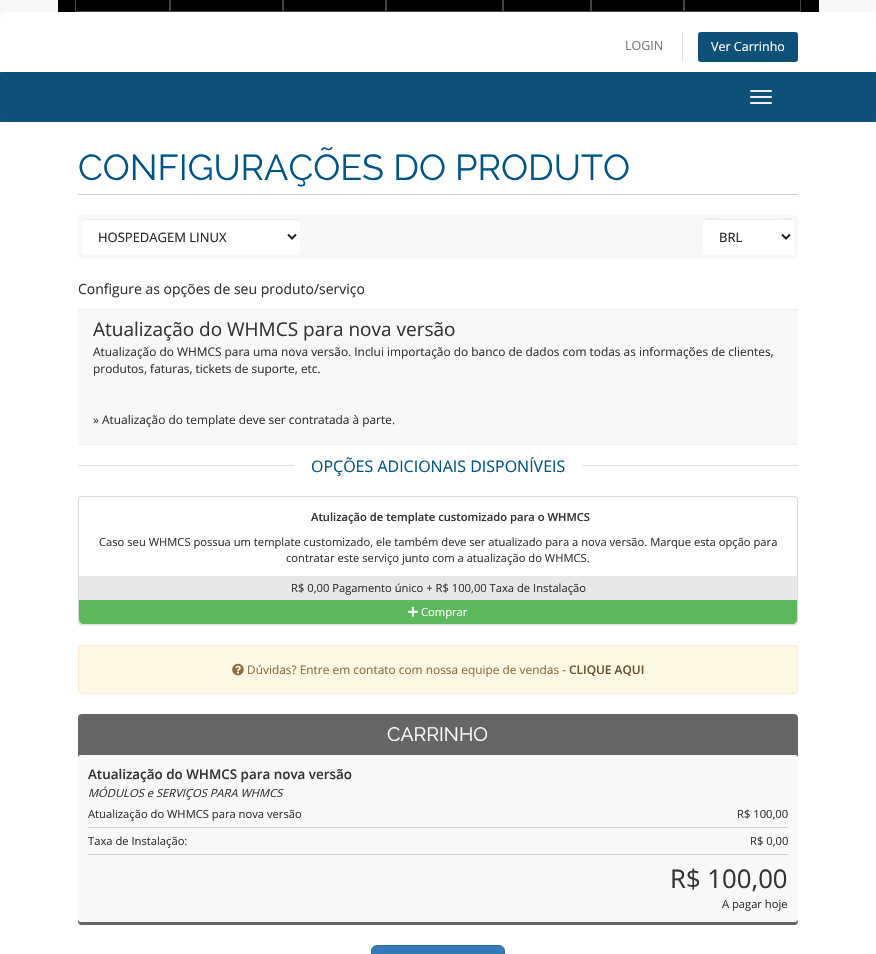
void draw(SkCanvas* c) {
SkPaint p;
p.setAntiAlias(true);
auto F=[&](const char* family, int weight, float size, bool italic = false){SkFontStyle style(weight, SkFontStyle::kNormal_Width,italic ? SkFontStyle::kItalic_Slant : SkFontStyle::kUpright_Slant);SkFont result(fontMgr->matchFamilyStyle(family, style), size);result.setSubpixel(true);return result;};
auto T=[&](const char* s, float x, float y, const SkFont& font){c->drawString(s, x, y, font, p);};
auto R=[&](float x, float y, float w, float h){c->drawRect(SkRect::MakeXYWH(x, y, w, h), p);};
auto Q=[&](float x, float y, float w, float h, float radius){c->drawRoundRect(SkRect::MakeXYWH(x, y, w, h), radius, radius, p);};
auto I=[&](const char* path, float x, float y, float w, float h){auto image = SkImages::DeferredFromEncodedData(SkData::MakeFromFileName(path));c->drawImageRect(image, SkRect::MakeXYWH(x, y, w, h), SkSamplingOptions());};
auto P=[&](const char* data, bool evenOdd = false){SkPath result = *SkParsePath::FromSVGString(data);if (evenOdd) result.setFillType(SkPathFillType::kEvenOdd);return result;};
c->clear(0xfff8f8f8);
p.setColor(0xff000000);
R(58,0,761,12);
p.setColor(0xff444444);
R(169,0,1,12);
R(75,11,95,1);
R(75,0,1,12);
R(282,0,1,12);
R(170,11,113,1);
R(170,0,1,12);
R(385,0,1,12);
R(283,11,103,1);
R(283,0,1,12);
R(502,0,1,12);
R(386,11,117,1);
R(386,0,1,12);
R(590,0,1,12);
R(503,11,88,1);
R(503,0,1,12);
R(683,0,1,12);
R(591,11,93,1);
R(591,0,1,12);
R(800,0,1,12);
R(684,11,117,1);
R(684,0,1,12);
p.setColor(0xffffffff);
c->drawPath(P("M5 12h866c3 0 5 2 5 5v55h-876v-55c0-3 2-5 5-5z"),p);
auto f1 = F("Open Sans",400,12.5);
p.setColor(0xff777777);
T("LOGIN",625,50,f1);
p.setColor(0xffdddddd);
R(682,32,1,30);
p.setColor(0xff0e5077);
Q(698,32,100,30,3);
p.setColor(0xffffffff);
T("Ver Carrinho",711,51,f1);
p.setColor(0xff006687);
R(0,72,876,50);
p.setColor(0xff0e5077);
Q(0,72,876,50,4);
p.setColor(0xffeeeeee);
Q(750,90,22,2,1);
Q(750,96,22,2,1);
Q(750,102,22,2,1);
p.setColor(0xffffffff);
R(0,122,876,832);
p.setColor(0xffcccccc);
R(78,194,720,1);
auto f2 = F("Raleway",400,36);
p.setColor(0xff005588);
T("CONFIGURAÇÕES DO PRODUTO",78,180,f2);
p.setColor(0xfff8f8f8);
Q(78,215,720,44,4);
p.setColor(0xffffffff);
Q(82,219,218,36,3);
p.setColor(0x12000000);
c->drawPath(P("M85 220h212c2 0 3 1 3 3v-1c0-2-1-3-3-3h-212c-2 0-3 1-3 3v1c0-2 1-3 3-3z"),p);
p.setStroke(true);
p.setStrokeWidth(2);
p.setColor(0xff222222);
c->drawPath(P("M288 234.5l4 4l4-4"),p);
auto f3 = F("Open Sans",400,13);
p.setStroke(false);
T("HOSPEDAGEM LINUX",98,242,f3);
p.setColor(0xffffffff);
Q(703,219,91,36,3);
p.setColor(0x12000000);
c->drawPath(P("M706 220h85c2 0 3 1 3 3c0-8-14-4-17-4h-57c-3 0-17-4-17 4c0-2 1-3 3-3z"),p);
p.setStroke(true);
p.setColor(0xff222222);
c->drawPath(P("M782 234.5l4 4l4-4"),p);
p.setStroke(false);
T("BRL",719,242,f3);
auto f4 = F("Open Sans",400,14);
p.setColor(0xff333333);
T("Configure as opções de seu produto/serviço",78,294,f4);
p.setColor(0xfff8f8f8);
R(78,310,720,134);
p.setColor(0xffefefef);
R(78,309,720,1);
R(78,444,720,1);
auto f5 = F("Open Sans",400,19);
p.setColor(0xff333333);
T("Atualização do WHMCS para nova versão",93,336,f5);
auto f6 = F("Open Sans",400,11.9);
T("Atualização do WHMCS para uma nova versão. Inclui importação do banco de dados com todas as informações de clientes,",93,356,f6);
T("produtos, faturas, tickets de suporte, etc.",93,373,f6);
T("» Atualização do template deve ser contratada à parte.",93,424,f6);
p.setColor(0xffdddddd);
R(78,465,720,1);
p.setColor(0xffffffff);
R(294,465,288,1);
auto f7 = F("Open Sans",400,16);
p.setColor(0xff005588);
T("OPÇÕES ADICIONAIS DISPONÍVEIS",311,472,f7);
p.setColor(0x0d000000);
p.setMaskFilter(SkMaskFilter::MakeBlur(kNormal_SkBlurStyle, .5));
c->drawRoundRect(SkRect::MakeXYWH(78,497,720,129),4,4,p);
p.setMaskFilter(nullptr);
p.setColor(0xffffffff);
c->drawRoundRect(SkRect::MakeXYWH(78.5,496.5,719,128),3.5,3.5,p);
p.setStroke(true);
p.setStrokeWidth(1);
p.setColor(0xffdddddd);
c->drawRoundRect(SkRect::MakeXYWH(78.5,496.5,719,128),3.5,3.5,p);
auto f8 = F("Open Sans",600,11.2);
p.setStroke(false);
p.setColor(0xff333333);
T("Atulização de template customizado para o WHMCS",311,521,f8);
auto f9 = F("Open Sans",400,11.2);
T("Caso seu WHMCS possua um template customizado, ele também deve ser atualizado para a nova versão. Marque esta opção para",99,546,f9);
T("contratar este serviço junto com a atualização do WHMCS.",286,562,f9);
p.setColor(0xffe8e8e8);
R(79,576,718,24);
p.setColor(0xff333333);
T("R$ 0,00 Pagamento único + R$ 100,00 Taxa de Instalação",291,592,f9);
p.setColor(0xff5cb85c);
c->drawPath(P("M79 600h718v20c0 2-2 4-4 4h-710c-2 0-4-2-4-4z"),p);
I("1.png",408,606,10,11);
p.setColor(0xffffffff);
T("Comprar",421,616,f9);
p.setColor(0xfffcf8e3);
c->drawRoundRect(SkRect::MakeXYWH(78.5,645.5,719,48),3.5,3.5,p);
p.setStroke(true);
p.setColor(0xfffaebcc);
c->drawRoundRect(SkRect::MakeXYWH(78.5,645.5,719,48),3.5,3.5,p);
I("2.png",232,663,12,13);
p.setStroke(false);
p.setColor(0xff8a6d3b);
T("Dúvidas? Entre em contato com nossa equipe de vendas -",247,674,f6);
auto f10 = F("Open Sans",600,11.9);
p.setColor(0xff66512c);
T("CLIQUE AQUI",569,674,f10);
p.setColor(0xff666666);
Q(78,714,720,211,4);
R(80,924,716,1);
auto f11 = F("Raleway",400,19.5);
p.setColor(0xffffffff);
T("CARRINHO",387,741,f11);
p.setColor(0xfff8f8f8);
Q(78,755,720,167,3);
auto f12 = F("Open Sans",600,13.4);
p.setColor(0xff333333);
T("Atualização do WHMCS para nova versão",88,779,f12);
auto f13 = F("Open Sans",400,11.2,true);
T("MÓDULOS e SERVIÇOS PARA WHMCS",88,797,f13);
T("Atualização do WHMCS para nova versão",88,818,f9);
T("R$ 100,00",737,818,f9);
p.setColor(0xffcccccc);
R(88,827,700,1);
R(88,854,700,1);
p.setColor(0xff333333);
T("Taxa de Instalação:",88,845,f9);
T("R$ 0,00",750,845,f9);
auto f14 = F("Open Sans",400,25.75);
T("R$ 100,00",670,888,f14);
T("A pagar hoje",722,908,f9);
p.setColor(0xff337ab7);
c->drawRoundRect(SkRect::MakeXYWH(371.5,945.5,133,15),5.5,5.5,p);
p.setStroke(true);
p.setColor(0xff2e6da4);
c->drawRoundRect(SkRect::MakeXYWH(371.5,945.5,133,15),5.5,5.5,p);
}
